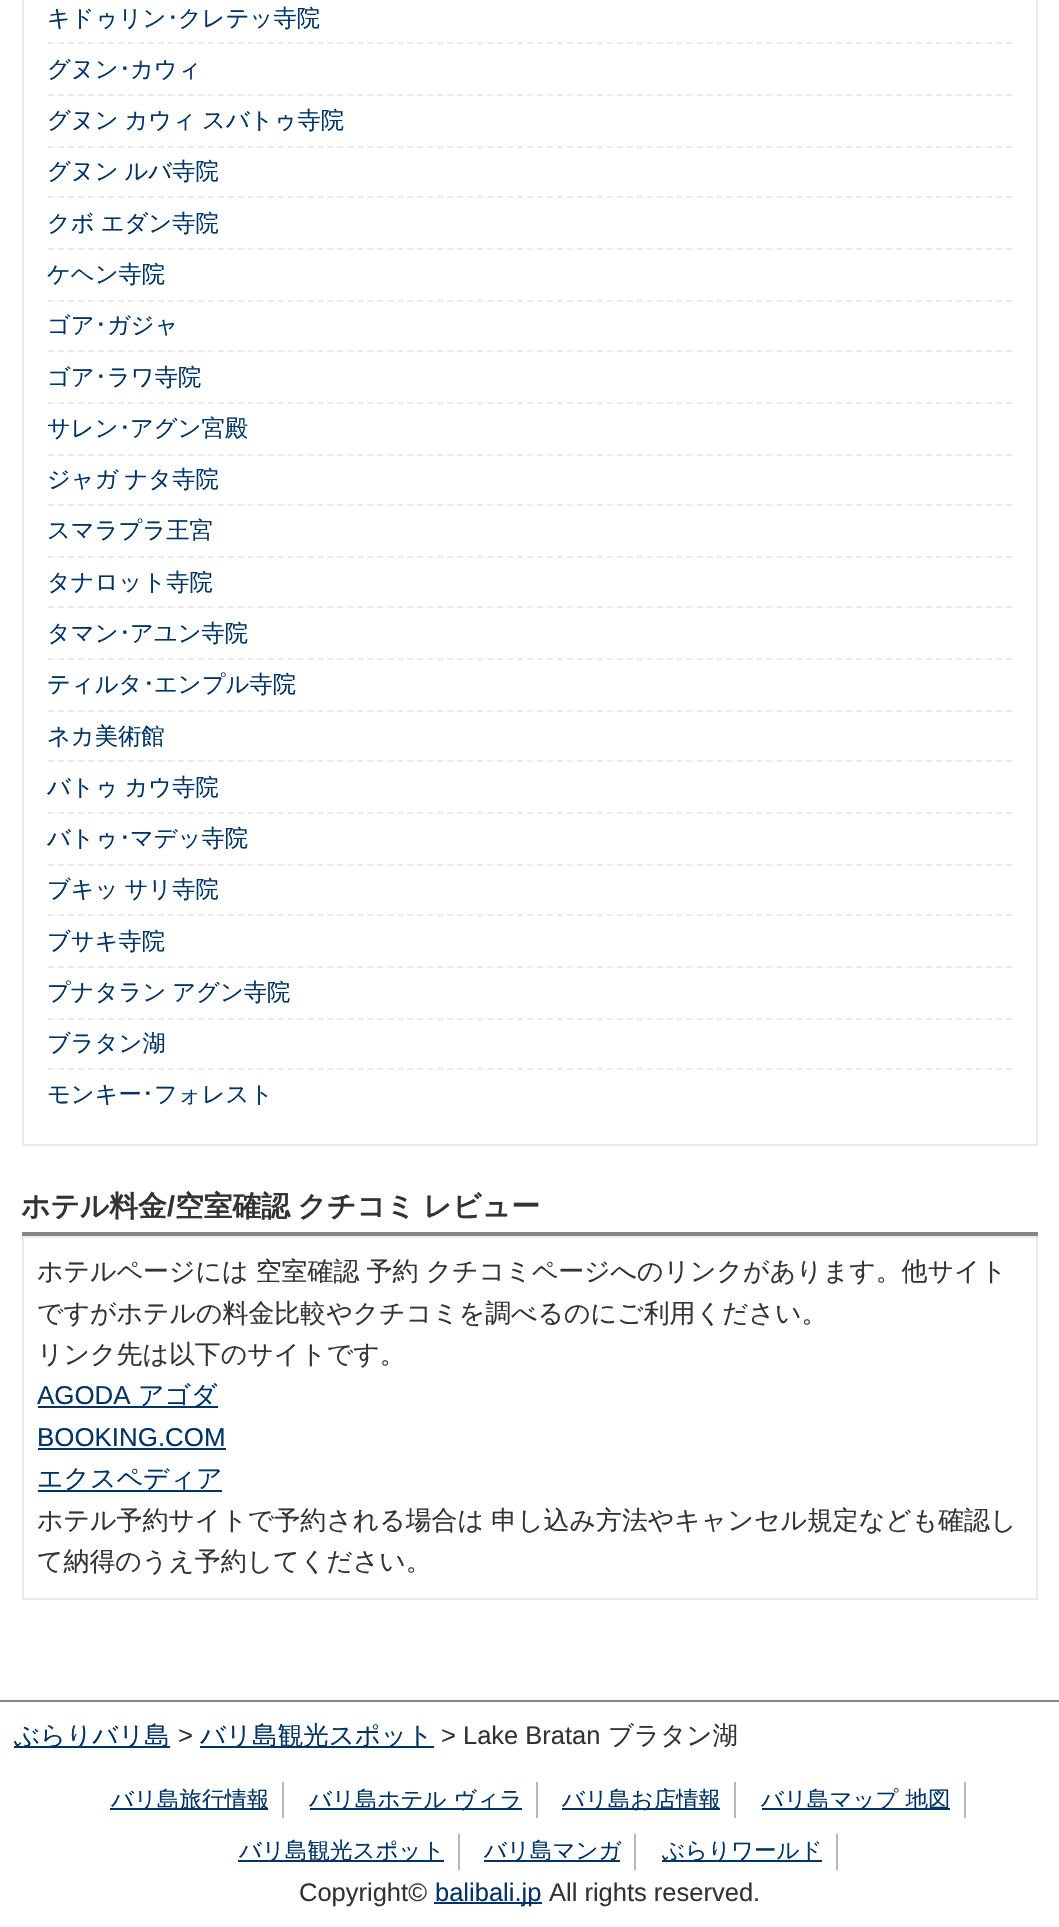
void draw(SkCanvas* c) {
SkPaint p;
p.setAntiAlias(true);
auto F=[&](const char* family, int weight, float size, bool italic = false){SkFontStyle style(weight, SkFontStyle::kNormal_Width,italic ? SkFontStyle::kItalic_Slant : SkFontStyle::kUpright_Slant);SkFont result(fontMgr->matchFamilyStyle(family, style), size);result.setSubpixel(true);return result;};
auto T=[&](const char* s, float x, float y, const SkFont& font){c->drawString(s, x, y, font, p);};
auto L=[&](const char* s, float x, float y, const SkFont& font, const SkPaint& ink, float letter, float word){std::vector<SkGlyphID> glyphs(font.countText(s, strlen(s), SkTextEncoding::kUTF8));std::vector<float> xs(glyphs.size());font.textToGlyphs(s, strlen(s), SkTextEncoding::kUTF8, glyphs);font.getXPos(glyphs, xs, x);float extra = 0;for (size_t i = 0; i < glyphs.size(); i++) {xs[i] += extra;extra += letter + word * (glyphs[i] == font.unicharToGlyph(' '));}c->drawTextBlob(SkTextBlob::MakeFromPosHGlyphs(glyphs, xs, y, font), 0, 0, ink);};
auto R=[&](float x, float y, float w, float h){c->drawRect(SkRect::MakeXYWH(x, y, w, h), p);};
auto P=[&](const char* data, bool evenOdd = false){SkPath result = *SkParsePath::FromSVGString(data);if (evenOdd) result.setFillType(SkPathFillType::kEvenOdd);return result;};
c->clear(0xffffffff);
p.setStroke(true);
p.setStrokeWidth(2);
p.setColor(0xffebebeb);
c->drawRect(SkRect::MakeXYWH(23,-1,1014,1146),p);
p.setPathEffect(SkDashPathEffect::Make({{6,3.98f}}, 0));
c->drawPath(P("M48 43h964"),p);
p.setPathEffect(nullptr);
auto f1 = F("WenQuanYi Zen Hei",500,23.3);
p.setStroke(false);
p.setColor(0xff003366);
T("キドゥリン",47,26,f1);
auto f2 = F("IPAPGothic",400,23.3);
T("･",167,26,f2);
T("クレテッ寺院",178,26,f1);
p.setStroke(true);
p.setColor(0xffebebeb);
p.setPathEffect(SkDashPathEffect::Make({{6,3.98f}}, 0));
c->drawPath(P("M48 95h964"),p);
p.setPathEffect(nullptr);
p.setStroke(false);
p.setColor(0xff003366);
T("グヌン",47,77,f1);
T("･",119,77,f2);
T("カウィ",130,77,f1);
p.setStroke(true);
p.setColor(0xffebebeb);
p.setPathEffect(SkDashPathEffect::Make({{6,3.98f}}, 0));
c->drawPath(P("M48 147h964"),p);
p.setPathEffect(nullptr);
p.setStroke(false);
p.setColor(0xff003366);
L("グヌン カウィ スバトゥ寺院",47,128,f1,p,0,-1);
p.setStroke(true);
p.setColor(0xffebebeb);
p.setPathEffect(SkDashPathEffect::Make({{6,3.98f}}, 0));
c->drawPath(P("M48 197h964"),p);
p.setPathEffect(nullptr);
p.setStroke(false);
p.setColor(0xff003366);
L("グヌン ルバ寺院",47,179,f1,p,0,-1);
p.setStroke(true);
p.setColor(0xffebebeb);
p.setPathEffect(SkDashPathEffect::Make({{6,3.98f}}, 0));
c->drawPath(P("M48 249h964"),p);
p.setPathEffect(nullptr);
p.setStroke(false);
p.setColor(0xff003366);
L("クボ エダン寺院",47,231,f1,p,0,-1);
p.setStroke(true);
p.setColor(0xffebebeb);
p.setPathEffect(SkDashPathEffect::Make({{6,3.98f}}, 0));
c->drawPath(P("M48 301h964"),p);
p.setPathEffect(nullptr);
p.setStroke(false);
p.setColor(0xff003366);
T("ケヘン寺院",47,282,f1);
p.setStroke(true);
p.setColor(0xffebebeb);
p.setPathEffect(SkDashPathEffect::Make({{6,3.98f}}, 0));
c->drawPath(P("M48 351h964"),p);
p.setPathEffect(nullptr);
p.setStroke(false);
p.setColor(0xff003366);
T("ゴア",47,333,f1);
T("･",95,333,f2);
T("ガジャ",107,333,f1);
p.setStroke(true);
p.setColor(0xffebebeb);
p.setPathEffect(SkDashPathEffect::Make({{6,3.98f}}, 0));
c->drawPath(P("M48 403h964"),p);
p.setPathEffect(nullptr);
p.setStroke(false);
p.setColor(0xff003366);
T("ゴア",47,385,f1);
T("･",95,385,f2);
T("ラワ寺院",107,385,f1);
p.setStroke(true);
p.setColor(0xffebebeb);
p.setPathEffect(SkDashPathEffect::Make({{6,3.98f}}, 0));
c->drawPath(P("M48 455h964"),p);
p.setPathEffect(nullptr);
p.setStroke(false);
p.setColor(0xff003366);
T("サレン",47,436,f1);
T("･",119,436,f2);
T("アグン宮殿",130,436,f1);
p.setStroke(true);
p.setColor(0xffebebeb);
p.setPathEffect(SkDashPathEffect::Make({{6,3.98f}}, 0));
c->drawPath(P("M48 505h964"),p);
p.setPathEffect(nullptr);
p.setStroke(false);
p.setColor(0xff003366);
L("ジャガ ナタ寺院",47,487,f1,p,0,-1);
p.setStroke(true);
p.setColor(0xffebebeb);
p.setPathEffect(SkDashPathEffect::Make({{6,3.98f}}, 0));
c->drawPath(P("M48 557h964"),p);
p.setPathEffect(nullptr);
p.setStroke(false);
p.setColor(0xff003366);
T("スマラプラ王宮",47,538,f1);
p.setStroke(true);
p.setColor(0xffebebeb);
p.setPathEffect(SkDashPathEffect::Make({{6,3.98f}}, 0));
c->drawPath(P("M48 607h964"),p);
p.setPathEffect(nullptr);
p.setStroke(false);
p.setColor(0xff003366);
T("タナロット寺院",47,590,f1);
p.setStroke(true);
p.setColor(0xffebebeb);
p.setPathEffect(SkDashPathEffect::Make({{6,3.98f}}, 0));
c->drawPath(P("M48 659h964"),p);
p.setPathEffect(nullptr);
p.setStroke(false);
p.setColor(0xff003366);
T("タマン",47,641,f1);
T("･",119,641,f2);
T("アユン寺院",130,641,f1);
p.setStroke(true);
p.setColor(0xffebebeb);
p.setPathEffect(SkDashPathEffect::Make({{6,3.98f}}, 0));
c->drawPath(P("M48 711h964"),p);
p.setPathEffect(nullptr);
p.setStroke(false);
p.setColor(0xff003366);
T("ティルタ",47,692,f1);
T("･",143,692,f2);
T("エンプル寺院",154,692,f1);
p.setStroke(true);
p.setColor(0xffebebeb);
p.setPathEffect(SkDashPathEffect::Make({{6,3.98f}}, 0));
c->drawPath(P("M48 761h964"),p);
p.setPathEffect(nullptr);
p.setStroke(false);
p.setColor(0xff003366);
T("ネカ美術館",47,744,f1);
p.setStroke(true);
p.setColor(0xffebebeb);
p.setPathEffect(SkDashPathEffect::Make({{6,3.98f}}, 0));
c->drawPath(P("M48 813h964"),p);
p.setPathEffect(nullptr);
p.setStroke(false);
p.setColor(0xff003366);
L("バトゥ カウ寺院",47,795,f1,p,0,-1);
p.setStroke(true);
p.setColor(0xffebebeb);
p.setPathEffect(SkDashPathEffect::Make({{6,3.98f}}, 0));
c->drawPath(P("M48 865h964"),p);
p.setPathEffect(nullptr);
p.setStroke(false);
p.setColor(0xff003366);
T("バトゥ",47,846,f1);
T("･",119,846,f2);
T("マデッ寺院",130,846,f1);
p.setStroke(true);
p.setColor(0xffebebeb);
p.setPathEffect(SkDashPathEffect::Make({{6,3.98f}}, 0));
c->drawPath(P("M48 915h964"),p);
p.setPathEffect(nullptr);
p.setStroke(false);
p.setColor(0xff003366);
L("ブキッ サリ寺院",47,897,f1,p,0,-1);
p.setStroke(true);
p.setColor(0xffebebeb);
p.setPathEffect(SkDashPathEffect::Make({{6,3.98f}}, 0));
c->drawPath(P("M48 967h964"),p);
p.setPathEffect(nullptr);
p.setStroke(false);
p.setColor(0xff003366);
T("ブサキ寺院",47,949,f1);
p.setStroke(true);
p.setColor(0xffebebeb);
p.setPathEffect(SkDashPathEffect::Make({{6,3.98f}}, 0));
c->drawPath(P("M48 1019h964"),p);
p.setPathEffect(nullptr);
p.setStroke(false);
p.setColor(0xff003366);
L("プナタラン アグン寺院",47,1000,f1,p,0,-1);
p.setStroke(true);
p.setColor(0xffebebeb);
p.setPathEffect(SkDashPathEffect::Make({{6,3.98f}}, 0));
c->drawPath(P("M48 1069h964"),p);
p.setPathEffect(nullptr);
p.setStroke(false);
p.setColor(0xff003366);
T("ブラタン湖",47,1051,f1);
T("モンキー",47,1102,f1);
T("･",142,1102,f2);
T("フォレスト",154,1102,f1);
p.setColor(0xff858585);
R(22,1232,1016,4);
auto f3 = F("WenQuanYi Zen Hei",700,28.75);
p.setColor(0xff333333);
T("ホテル料金",21,1216,f3);
auto f4 = F("Liberation Sans",700,28.75);
T("/",167,1216,f4);
L("空室確認 クチコミ レビュー",175,1216,f3,p,0,-1);
p.setStroke(true);
p.setColor(0xffebebeb);
c->drawRect(SkRect::MakeXYWH(23,1237,1014,362),p);
auto f5 = F("WenQuanYi Zen Hei",500,25.9);
p.setStroke(false);
p.setColor(0xff333333);
L("ホテルページには 空室確認 予約 クチコミページへのリンクがあります。他サイト",37,1280,f5,p,0,-.5);
T("ですがホテルの料金比較やクチコミを調べるのにご利用ください。",37,1322,f5);
T("リンク先は以下のサイトです。",37,1363,f5);
auto f6 = F("Liberation Sans",400,25.9);
p.setColor(0xff003366);
T("AGODA",37,1404,f6);
R(38,1406,180,2);
T("アゴダ",138,1404,f5);
T("BOOKING.COM",37,1446,f6);
R(38,1448,188,2);
R(38,1490,184,2);
T("エクスペディア",37,1487,f5);
p.setColor(0xff333333);
L("ホテル予約サイトで予約される場合は 申し込み方法やキャンセル規定なども確認し",37,1529,f5,p,0,-.5);
T("て納得のうえ予約してください。",37,1570,f5);
p.setColor(0xff858585);
R(0,1700,1059,2);
p.setColor(0xff003366);
R(14,1746,156,2);
auto f7 = F("WenQuanYi Zen Hei",500,25.5);
T("ぶらりバリ島",14,1744,f7);
auto f8 = F("Liberation Sans",400,25.5);
p.setColor(0xff333333);
T(">",178,1744,f8);
p.setColor(0xff003366);
R(200,1746,234,2);
T("バリ島観光スポット",200,1744,f7);
p.setColor(0xff333333);
T("> Lake Bratan",441,1744,f8);
T("ブラタン湖",608,1744,f7);
p.setColor(0xffb6b6b6);
R(282,1782,2,36);
p.setColor(0xff003366);
R(110,1808,158,2);
auto f9 = F("WenQuanYi Zen Hei",500,22.5);
T("バリ島旅行情報",111,1807,f9);
p.setColor(0xffb6b6b6);
R(536,1782,2,36);
p.setColor(0xff003366);
R(310,1808,212,2);
T("バリ島ホテル ヴィラ",309,1807,f9);
p.setColor(0xffb6b6b6);
R(734,1782,2,36);
p.setColor(0xff003366);
R(562,1808,158,2);
T("バリ島お店情報",562,1807,f9);
p.setColor(0xffb6b6b6);
R(964,1782,2,36);
p.setColor(0xff003366);
R(762,1808,188,2);
T("バリ島マップ 地図",761,1807,f9);
p.setColor(0xffb6b6b6);
R(458,1834,2,36);
p.setColor(0xff003366);
R(238,1860,206,2);
T("バリ島観光スポット",239,1858,f9);
p.setColor(0xffb6b6b6);
R(634,1834,2,36);
p.setColor(0xff003366);
R(484,1860,136,2);
T("バリ島マンガ",484,1858,f9);
p.setColor(0xffb6b6b6);
R(836,1834,2,36);
p.setColor(0xff003366);
R(662,1860,160,2);
T("ぶらりワールド",662,1858,f9);
p.setColor(0xff333333);
T("Copyright©",299,1901,f8);
p.setColor(0xff003366);
R(434,1902,108,2);
T("balibali.jp",435,1901,f8);
p.setColor(0xff333333);
T("All rights reserved.",549,1901,f8);
}
